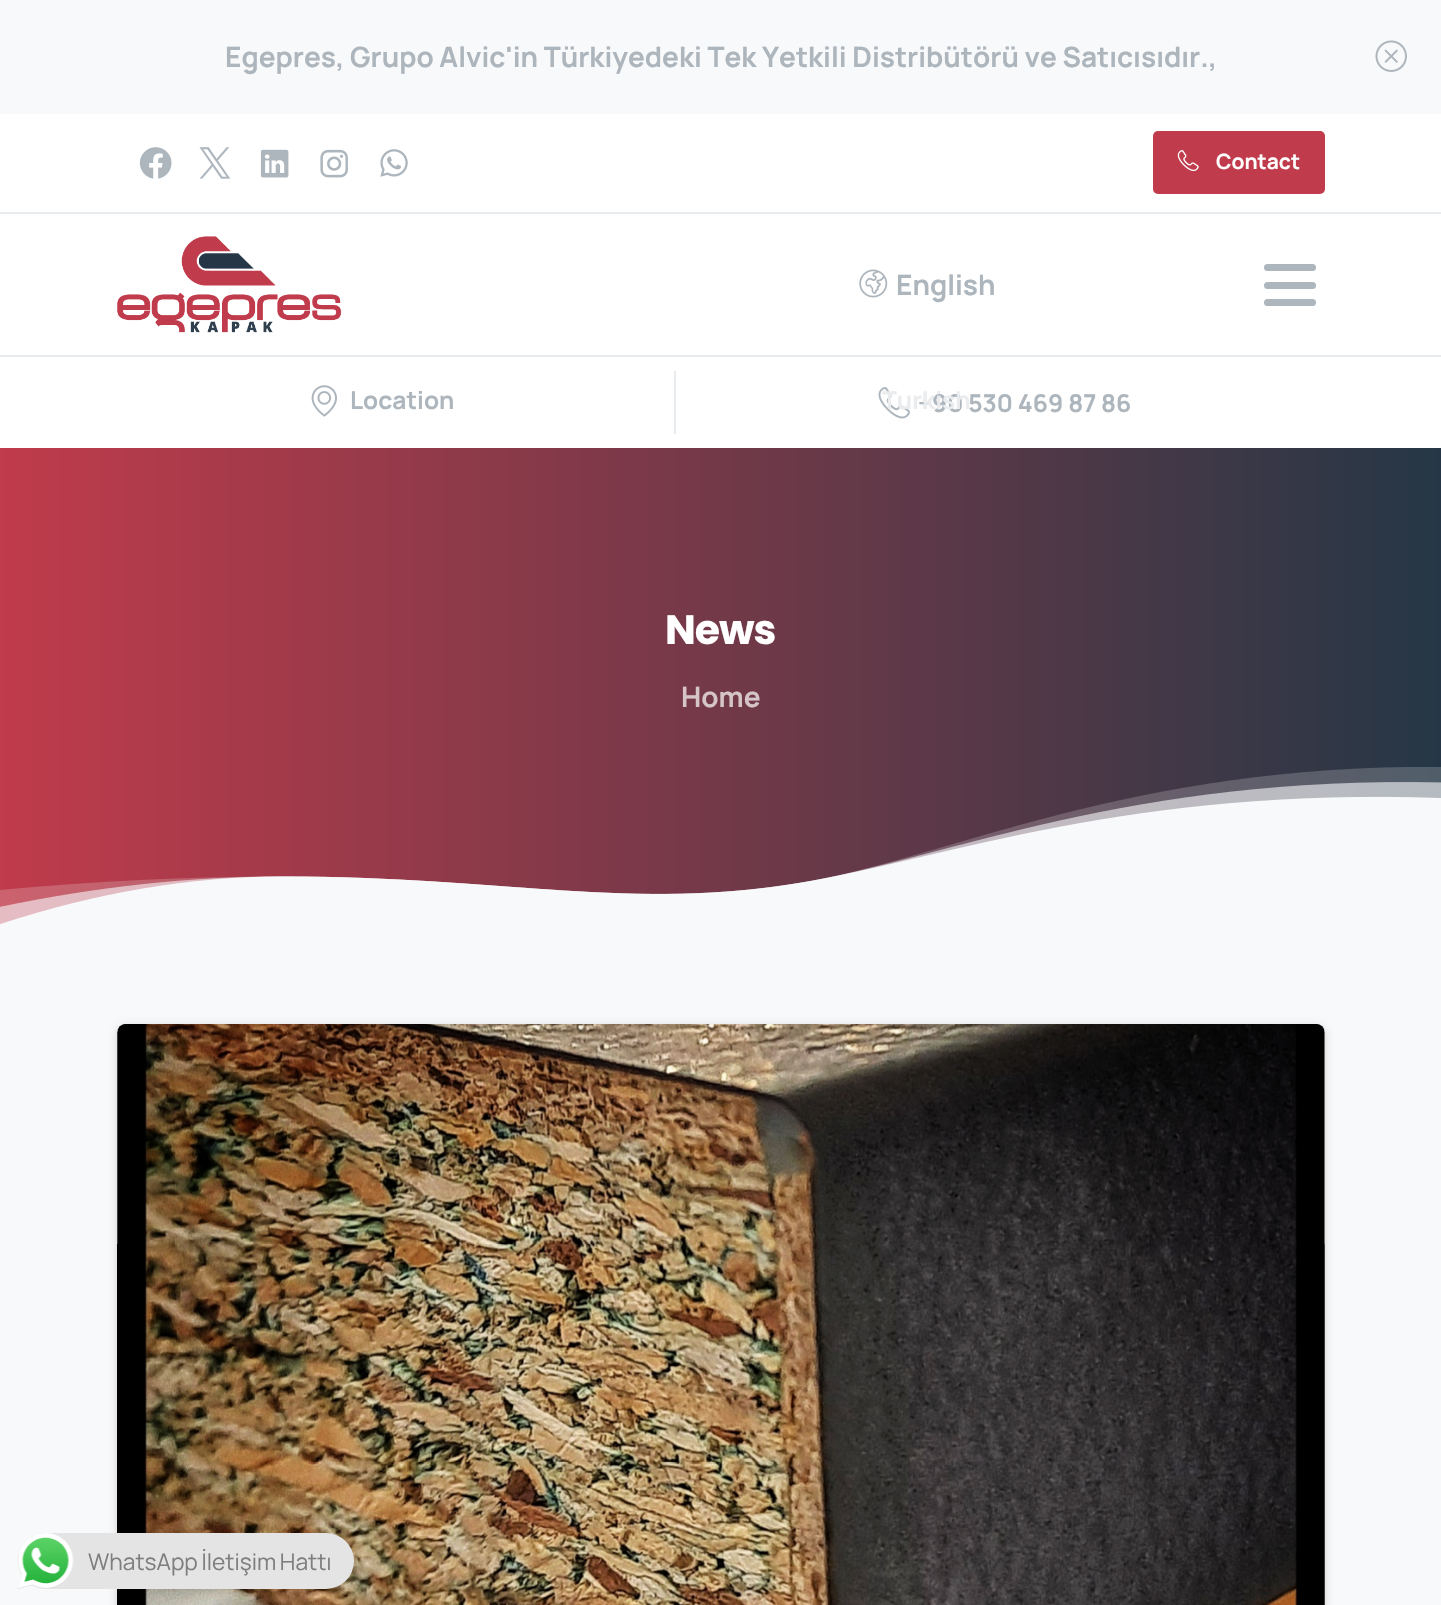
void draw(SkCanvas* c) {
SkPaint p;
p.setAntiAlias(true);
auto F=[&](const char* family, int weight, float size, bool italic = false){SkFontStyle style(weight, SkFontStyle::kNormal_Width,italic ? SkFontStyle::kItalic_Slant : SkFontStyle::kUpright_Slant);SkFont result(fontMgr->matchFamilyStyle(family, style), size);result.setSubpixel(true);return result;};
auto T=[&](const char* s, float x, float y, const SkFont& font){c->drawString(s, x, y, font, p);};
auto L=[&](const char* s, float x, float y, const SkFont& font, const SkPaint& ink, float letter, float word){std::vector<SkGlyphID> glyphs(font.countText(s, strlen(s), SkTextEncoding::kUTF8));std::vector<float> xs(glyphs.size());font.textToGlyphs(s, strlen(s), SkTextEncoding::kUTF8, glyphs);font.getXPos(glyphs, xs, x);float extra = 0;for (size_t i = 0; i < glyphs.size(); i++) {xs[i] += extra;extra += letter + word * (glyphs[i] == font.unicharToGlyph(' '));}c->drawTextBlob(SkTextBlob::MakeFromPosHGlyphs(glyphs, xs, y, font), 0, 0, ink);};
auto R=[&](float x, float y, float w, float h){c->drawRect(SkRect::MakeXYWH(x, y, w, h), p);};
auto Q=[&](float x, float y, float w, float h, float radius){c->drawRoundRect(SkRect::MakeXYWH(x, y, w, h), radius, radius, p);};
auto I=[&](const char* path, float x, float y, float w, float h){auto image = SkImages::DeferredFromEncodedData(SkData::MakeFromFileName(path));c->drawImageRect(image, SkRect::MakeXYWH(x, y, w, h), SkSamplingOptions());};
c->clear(0xffffffff);
p.setColor(0xfff8f9fa);
R(0,0,1441,114);
auto f1 = F("Manrope",700,28);
p.setColor(0xffadb5bd);
T("Egepres, Grupo Alvic'in Türkiyedeki Tek Yetkili Distribütörü ve Satıcısıdır.,",225,67,f1);
I("1.png",1375,40,32,32);
I("2.png",139,147,33,32);
I("3.png",199,147,32,32);
I("4.png",260,149,29,29);
I("5.png",320,149,28,29);
I("6.png",380,149,28,28);
p.setColor(0xffc03b4b);
Q(1153,131,172,63,5);
I("7.png",1177,150,22,22);
auto f2 = F("Manrope",700,21);
p.setColor(0xffffffff);
T("Contact",1216,169,f2);
p.setColor(0xffe9ecef);
R(0,212,1441,2);
I("8.png",117,236,225,97);
I("9.png",859,269,29,29);
p.setColor(0xffadb5bd);
T("English",896,295,f1);
I("11.png",878,387,32,32);
auto f3 = F("Manrope",700,24.5);
T("+90 530 469 87 86",918,412,f3);
p.setColor(0xffeaecee);
T("Turkish",882,409,f3);
p.setColor(0xffadb5bd);
Q(1264,264,52,7,3.5);
Q(1264,282,52,7,3.5);
Q(1264,299,52,7,3.5);
p.setColor(0xffe9ecef);
R(0,355,1441,2);
I("10.png",311,385,26,32);
p.setColor(0xffadb5bd);
T("Location",350,409,f3);
p.setColor(0xffe9ecef);
R(674,371,2,63);
{
const SkColor colors[] = {0xffc03b4b,0xff253746};
const float stops[] = {0,1};
const SkPoint ends[] = {{0,803}, {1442,803}};
p.setShader(SkGradientShader::MakeLinear(ends, colors, stops, 2, SkTileMode::kClamp));
p.setAlpha(255);
}
R(0,448,1441,477);
auto f4 = F("Poppins",700,41);
p.setShader(nullptr);
p.setColor(0xffffffff);
L("News",665,644,f4,p,-1,0);
p.setColor(0xffd5c4c8);
T("Home",681,707,f1);
I("12.png",0,767,1441,173);
p.setColor(0xfff8f9fa);
R(0,940,1441,665);
p.setColor(0x26000000);
p.setMaskFilter(SkMaskFilter::MakeBlur(kNormal_SkBlurStyle, 4.5));
c->drawRoundRect(SkRect::MakeXYWH(117,1026,1208,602),9,9,p);
p.setMaskFilter(nullptr);
p.setColor(0xffffffff);
Q(117,1024,1208,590,9);
I("13.png",117,1024,1208,581);
p.setColor(0xffe4e4e4);
Q(18,1533,336,56,28);
I("14.png",17,1533,57,56);
auto f5 = F("Manrope",400,22.75);
p.setColor(0xff7f7d7d);
L("WhatsApp İletişim Hattı",88,1570,f5,p,0,-1);
}
